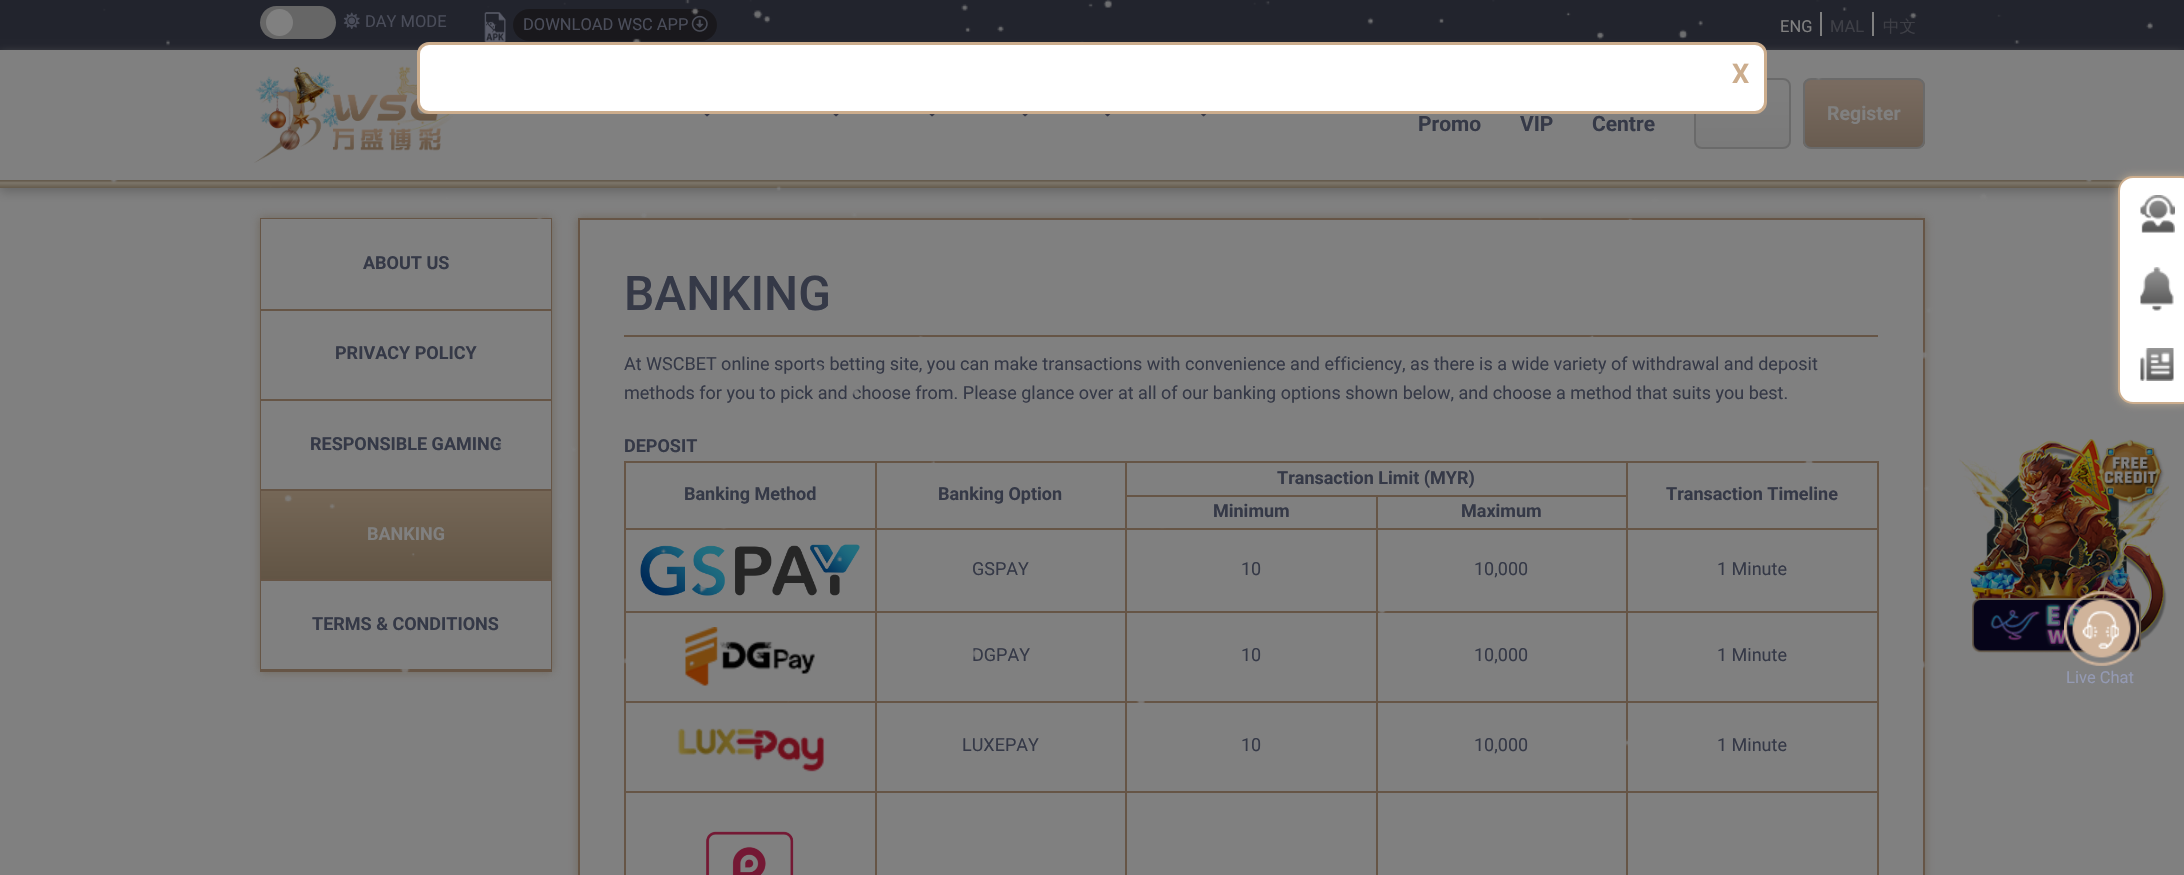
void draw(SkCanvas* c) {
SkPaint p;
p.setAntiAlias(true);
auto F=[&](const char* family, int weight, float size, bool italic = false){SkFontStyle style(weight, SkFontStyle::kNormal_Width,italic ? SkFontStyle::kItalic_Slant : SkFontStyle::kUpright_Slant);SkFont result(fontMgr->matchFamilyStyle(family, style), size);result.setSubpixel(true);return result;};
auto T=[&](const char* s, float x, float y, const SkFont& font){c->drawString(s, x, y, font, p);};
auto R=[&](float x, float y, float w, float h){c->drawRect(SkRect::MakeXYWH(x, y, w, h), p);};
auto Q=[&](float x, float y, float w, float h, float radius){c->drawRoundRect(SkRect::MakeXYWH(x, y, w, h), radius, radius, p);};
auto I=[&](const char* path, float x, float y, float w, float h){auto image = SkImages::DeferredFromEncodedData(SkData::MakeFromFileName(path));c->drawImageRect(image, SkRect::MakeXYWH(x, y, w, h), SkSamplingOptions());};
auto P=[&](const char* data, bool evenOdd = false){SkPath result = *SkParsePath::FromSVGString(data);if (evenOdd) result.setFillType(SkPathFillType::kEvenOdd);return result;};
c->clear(0xff808080);
p.setColor(0xff22242d);
R(0,0,2184,50);
p.setColor(0xff666666);
Q(260,6,76,33,16.5);
p.setColor(0xff808080);
c->drawCircle(279.5,22.5,13.5,p);
I("2.png",343,12,17,17);
auto f1 = F("Roboto",400,16.5);
p.setColor(0xff4a4d5a);
T("DAY MODE",365,27,f1);
I("3.png",484,12,22,30);
p.setColor(0xff19181c);
Q(513,9,204,32,16);
p.setColor(0xff4a4d5a);
T("DOWNLOAD WSC APP",523,30,f1);
I("4.png",691,15,17,17);
p.setColor(0xff808080);
T("ENG",1780,32,f1);
R(1820,12,2,24);
p.setColor(0xff3e3f46);
T("MAL",1830,32,f1);
p.setColor(0xff808080);
R(1872,12,2,24);
auto f2 = F("WenQuanYi Zen Hei",500,16.5);
p.setColor(0xff3e3f46);
T("中文",1883,32,f2);
p.setColor(0xff666666);
p.setMaskFilter(SkMaskFilter::MakeBlur(kNormal_SkBlurStyle, 5));
c->drawRect(SkRect::MakeXYWH(0,54,2184,138),p);
p.setMaskFilter(nullptr);
p.setColor(0xff808080);
R(0,50,2184,130);
I("5.png",254,66,199,97);
I("6.png",704,114,6,3);
I("6.png",833,114,6,3);
I("6.png",929,114,6,3);
I("6.png",1022,114,6,3);
I("7.png",1105,114,6,3);
I("7.png",1201,114,6,3);
auto f3 = F("Roboto",700,21);
p.setColor(0xff353947);
T("Promo",1418,131,f3);
T("VIP",1520,131,f3);
T("Centre",1592,131,f3);
c->save();
c->clipPath(P("M1702 78h81c4.5 0 8 3.5 8 8v55c0 4.5-3.5 8-8 8h-81c-4.5 0-8-3.5-8-8v-55c0-4.5 3.5-8 8-8z"),true);
{
const SkColor colors[] = {0xff7f7f7f,0xff7a7a7a};
const float stops[] = {.05,1};
const SkPoint ends[] = {{1742,80}, {1742,147}};
p.setShader(SkGradientShader::MakeLinear(ends, colors, stops, 2, SkTileMode::kClamp));
p.setAlpha(255);
}
R(1694,80,97,67);
c->restore();
p.setStroke(true);
p.setStrokeWidth(2);
p.setShader(nullptr);
p.setColor(0xff6a6a6a);
c->drawRoundRect(SkRect::MakeXYWH(1695,79,95,69),7,7,p);
c->save();
c->clipPath(P("M1811 78h106c4.5 0 8 3.5 8 8v55c0 4.5-3.5 8-8 8h-106c-4.5 0-8-3.5-8-8v-55c0-4.5 3.5-8 8-8z"),true);
p.setStroke(false);
{
const SkColor colors[] = {0xff796b60,0xff695c50};
const float stops[] = {.05,1};
const SkPoint ends[] = {{1864,80}, {1864,147}};
p.setShader(SkGradientShader::MakeLinear(ends, colors, stops, 2, SkTileMode::kClamp));
p.setAlpha(255);
}
R(1803,80,122,67);
c->restore();
p.setStroke(true);
p.setShader(nullptr);
p.setColor(0xff6a6a6a);
c->drawRoundRect(SkRect::MakeXYWH(1804,79,120,69),7,7,p);
auto f4 = F("Roboto",700,19.5);
p.setStroke(false);
p.setColor(0xff808080);
T("Register",1827,120,f4);
{
const SkColor colors[] = {0xff655b4d,0xff7c766a,0xff655b4d};
const float stops[] = {.1,.35,1};
const SkPoint ends[] = {{1092,180}, {1092,188}};
p.setShader(SkGradientShader::MakeLinear(ends, colors, stops, 3, SkTileMode::kClamp));
p.setAlpha(255);
}
R(0,180,2123,8);
p.setShader(nullptr);
p.setColor(0xb3665b4c);
p.setMaskFilter(SkMaskFilter::MakeBlur(kNormal_SkBlurStyle, 4.5));
c->drawRect(SkRect::MakeXYWH(260,218,292,454),p);
p.setMaskFilter(nullptr);
p.setStroke(true);
p.setColor(0xff665546);
c->drawRect(SkRect::MakeXYWH(261,219,290,452),p);
p.setStroke(false);
p.setColor(0xff808080);
R(261,219,290,90);
p.setColor(0xff665546);
R(261,309,290,2);
auto f5 = F("Roboto",700,18);
p.setColor(0xff353947);
T("ABOUT US",363,269,f5);
p.setColor(0xff808080);
R(261,311,290,88);
p.setColor(0xff665546);
R(261,399,290,2);
p.setColor(0xff353947);
T("PRIVACY POLICY",335,359,f5);
p.setColor(0xff808080);
R(261,401,290,88);
p.setColor(0xff665546);
R(261,489,290,2);
p.setColor(0xff353947);
T("RESPONSIBLE GAMING",310,450,f5);
{
const SkColor colors[] = {0xff756757,0xff625545};
const float stops[] = {0,.99};
const SkPoint ends[] = {{406,491}, {406,579}};
p.setShader(SkGradientShader::MakeLinear(ends, colors, stops, 2, SkTileMode::kClamp));
p.setAlpha(255);
}
R(261,491,290,88);
p.setShader(nullptr);
p.setColor(0xff665546);
R(261,579,290,2);
p.setColor(0xff808080);
T("BANKING",367,540,f5);
R(261,581,290,88);
p.setColor(0xff665546);
R(261,669,290,1);
p.setColor(0xff353947);
T("TERMS & CONDITIONS",312,630,f5);
p.setColor(0xb3665b4c);
p.setMaskFilter(SkMaskFilter::MakeBlur(kNormal_SkBlurStyle, 4.5));
c->drawRect(SkRect::MakeXYWH(578,218,1347,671),p);
p.setMaskFilter(nullptr);
p.setColor(0xff808080);
c->drawRect(SkRect::MakeXYWH(579,219,1345,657),p);
p.setStroke(true);
p.setColor(0xff665546);
c->drawRect(SkRect::MakeXYWH(579,219,1345,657),p);
p.setStroke(false);
R(624,335,1254,2);
auto f6 = F("Roboto",500,48);
p.setColor(0xff353947);
T("BANKING",624,310,f6);
auto f7 = F("Roboto",400,18);
T("At WSCBET online sports betting site, you can make transactions with convenience and efficiency, as there is a wide variety of withdrawal and deposit",624,370,f7);
T("methods for you to pick and choose from. Please glance over at all of our banking options shown below, and choose a method that suits you best.",624,399,f7);
T("DEPOSIT",624,452,f5);
p.setColor(0xff665546);
R(1626,461,252,2);
R(1376,495,252,2);
R(1626,528,252,2);
R(1626,611,252,2);
R(1626,701,252,2);
R(1626,791,252,2);
R(1626,791,2,84);
R(1376,791,252,2);
R(1626,701,2,91);
R(1376,701,252,2);
R(1626,611,2,91);
R(1376,611,252,2);
R(1626,528,2,84);
R(1376,528,252,2);
R(1626,461,2,69);
R(1125,461,503,2);
R(1376,791,2,84);
R(1125,791,252,2);
R(1376,701,2,91);
R(1125,701,252,2);
R(1376,611,2,91);
R(1125,611,252,2);
R(1376,528,2,84);
R(1125,528,252,2);
R(1376,495,2,35);
R(1125,495,252,2);
R(1125,791,2,84);
R(875,791,252,2);
R(1125,701,2,91);
R(875,701,252,2);
R(1125,611,2,91);
R(875,611,252,2);
R(1125,528,2,84);
R(875,528,252,2);
R(1125,495,2,35);
R(1125,461,2,36);
p.setColor(0xff353947);
T("Transaction Limit (MYR)",1277,484,f5);
p.setColor(0xff665546);
R(875,461,252,2);
R(875,791,2,84);
R(624,791,252,2);
R(875,701,2,91);
R(624,701,252,2);
R(875,611,2,91);
R(624,611,252,2);
R(875,528,2,84);
R(624,528,252,2);
R(875,461,2,69);
R(624,461,252,2);
R(624,791,2,84);
R(624,701,2,91);
R(624,611,2,91);
R(624,528,2,84);
R(624,461,2,69);
p.setColor(0xff353947);
T("Banking Method",684,500,f5);
T("Banking Option",938,500,f5);
p.setColor(0xff665546);
R(1877,791,2,84);
R(1877,701,2,91);
R(1877,611,2,91);
R(1877,528,2,84);
R(1877,461,2,69);
p.setColor(0xff353947);
T("Transaction Timeline",1666,500,f5);
T("Minimum",1213,517,f5);
T("Maximum",1461,517,f5);
I("8.png",640,544,220,52);
T("GSPAY",972,575,f7);
T("10",1241,575,f7);
T("10,000",1474,575,f7);
T("1 Minute",1717,575,f7);
I("9.png",685,627,130,59);
T("DGPAY",972,661,f7);
T("10",1241,661,f7);
T("10,000",1474,661,f7);
T("1 Minute",1717,661,f7);
I("10.png",677,728,148,44);
T("LUXEPAY",962,751,f7);
T("10",1241,751,f7);
T("10,000",1474,751,f7);
T("1 Minute",1717,751,f7);
I("1.png",103,0,2050,746);
p.setColor(0xffffffff);
c->drawRoundRect(SkRect::MakeXYWH(418.5,43.5,1347,69),10.5,10.5,p);
p.setStroke(true);
p.setStrokeWidth(3);
p.setColor(0xffccad8d);
c->drawRoundRect(SkRect::MakeXYWH(418.5,43.5,1347,69),10.5,10.5,p);
auto f8 = F("Roboto",700,27);
p.setStroke(false);
T("X",1732,83,f8);
I("11.png",706,831,88,44);
p.setColor(0xb3cbb698);
p.setMaskFilter(SkMaskFilter::MakeBlur(kNormal_SkBlurStyle, 4.5));
c->drawRoundRect(SkRect::MakeXYWH(2118,176,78,228),15,15,p);
p.setMaskFilter(nullptr);
p.setColor(0xffffffff);
c->drawRoundRect(SkRect::MakeXYWH(2119,177,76,226),14,14,p);
p.setStroke(true);
p.setStrokeWidth(2);
p.setColor(0xffccad8d);
c->drawRoundRect(SkRect::MakeXYWH(2119,177,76,226),14,14,p);
I("12.png",2140,195,35,38);
I("13.png",2140,267,34,44);
I("14.png",2140,348,34,33);
I("15.png",1959,439,210,214);
I("16.png",2064,591,75,75);
p.setStroke(false);
p.setColor(0xff949ab3);
T("Live Chat",2066,683,f1);
}
